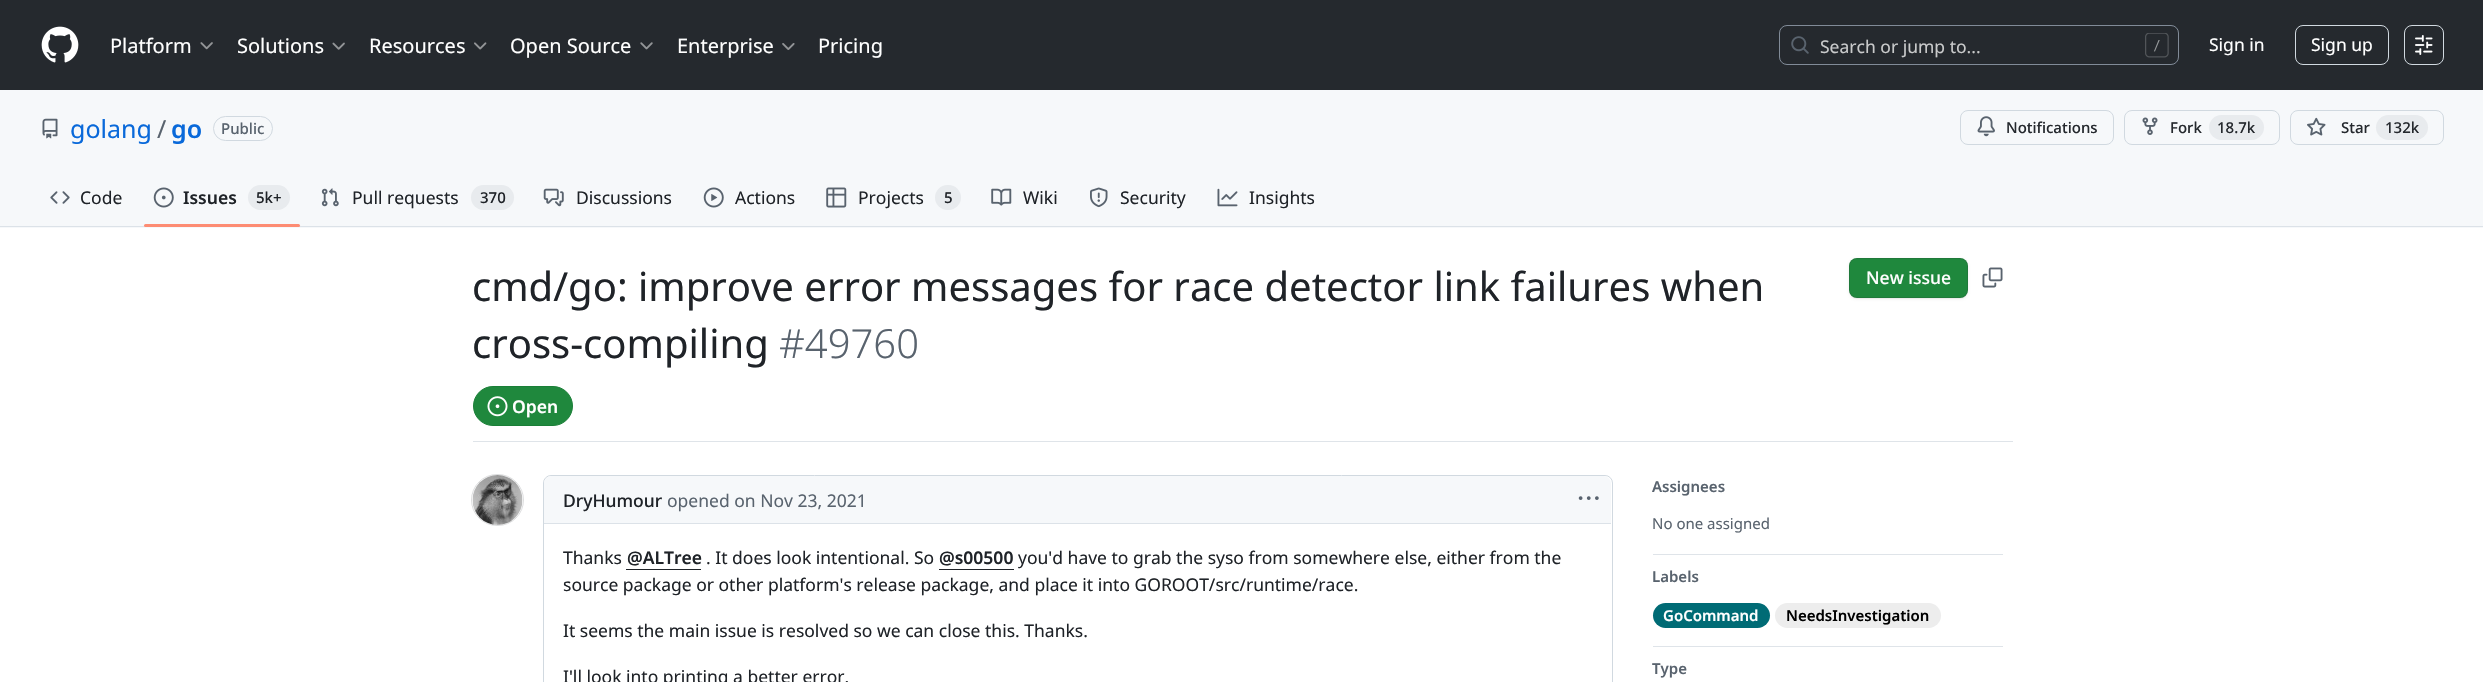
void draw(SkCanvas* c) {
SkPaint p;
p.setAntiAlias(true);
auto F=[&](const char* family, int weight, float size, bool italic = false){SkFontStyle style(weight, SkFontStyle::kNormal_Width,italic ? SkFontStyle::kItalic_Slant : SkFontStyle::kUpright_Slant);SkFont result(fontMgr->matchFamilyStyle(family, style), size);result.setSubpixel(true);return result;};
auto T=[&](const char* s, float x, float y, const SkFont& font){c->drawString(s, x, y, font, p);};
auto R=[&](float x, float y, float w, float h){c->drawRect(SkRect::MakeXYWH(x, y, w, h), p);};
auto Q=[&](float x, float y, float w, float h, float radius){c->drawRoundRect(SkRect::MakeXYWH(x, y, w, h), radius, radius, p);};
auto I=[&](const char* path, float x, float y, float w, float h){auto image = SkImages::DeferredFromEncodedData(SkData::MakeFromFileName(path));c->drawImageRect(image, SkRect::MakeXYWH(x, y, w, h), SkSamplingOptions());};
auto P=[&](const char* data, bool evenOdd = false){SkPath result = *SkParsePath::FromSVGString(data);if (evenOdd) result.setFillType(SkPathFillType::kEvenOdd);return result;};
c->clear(0xffffffff);
p.setColor(0xff25292e);
R(0,0,2483,90);
I("1.png",41,26,38,37);
auto f1 = F("Noto Sans",400,20);
p.setColor(0xffffffff);
T("Platform",110,53,f1);
I("2.png",200,42,13,8);
T("Solutions",237,53,f1);
I("3.png",332,42,13,8);
T("Resources",369,53,f1);
I("4.png",474,42,13,8);
T("Open Source",510,53,f1);
I("5.png",640,42,13,8);
T("Enterprise",677,53,f1);
I("6.png",782,43,13,7);
T("Pricing",818,53,f1);
p.setStroke(true);
p.setStrokeWidth(1);
p.setColor(0xff818b98);
c->drawRoundRect(SkRect::MakeXYWH(1779.5,25.5,399,39),7.5,7.5,p);
I("7.png",1791,36,18,18);
auto f2 = F("Noto Sans",400,17.5);
p.setStroke(false);
p.setColor(0xffc9cacb);
T("Search or jump to...",1820,53,f2);
I("8.png",2145,33,24,25);
p.setColor(0xffffffff);
T("Sign in",2209,51,f2);
p.setStroke(true);
p.setColor(0xffd1d9e0);
c->drawRoundRect(SkRect::MakeXYWH(2295.5,25.5,93,39),7.5,7.5,p);
p.setStroke(false);
p.setColor(0xffffffff);
T("Sign up",2311,51,f2);
p.setStroke(true);
p.setColor(0xffd1d9e0);
c->drawRoundRect(SkRect::MakeXYWH(2404.5,25.5,39,39),7.5,7.5,p);
I("9.png",2415,35,18,20);
p.setStroke(false);
p.setColor(0xfff6f8fa);
R(0,90,2483,138);
I("10.png",42,118,16,21);
auto f3 = F("Noto Sans",400,25);
p.setColor(0xff0969da);
T("golang",70,138,f3);
p.setColor(0xff59636e);
T("/",157,138,f3);
auto f4 = F("Noto Sans",600,25);
p.setColor(0xff0969da);
T("go",171,138,f4);
p.setStroke(true);
p.setColor(0xffd1d9e0);
c->drawRoundRect(SkRect::MakeXYWH(213.5,116.5,59,24),12,12,p);
auto f5 = F("Noto Sans",500,15);
p.setStroke(false);
p.setColor(0xff59636e);
T("Public",221,134,f5);
p.setStroke(true);
p.setColor(0xffd1d9e0);
c->drawRoundRect(SkRect::MakeXYWH(1960.5,110.5,153,34),7.5,7.5,p);
I("11.png",1977,116,18,21);
p.setStroke(false);
p.setColor(0xff25292e);
T("Notifications",2006,133,f5);
p.setStroke(true);
p.setColor(0xffd1d9e0);
c->drawRoundRect(SkRect::MakeXYWH(2124.5,110.5,155,34),7.5,7.5,p);
I("12.png",2142,117,16,18);
p.setStroke(false);
p.setColor(0xff25292e);
T("Fork",2170,133,f5);
p.setColor(0xffe8ebee);
Q(2209,115,55,25,12.5);
p.setColor(0xff25292e);
T("18.7k",2217,133,f5);
p.setStroke(true);
p.setColor(0xffd1d9e0);
c->drawRoundRect(SkRect::MakeXYWH(2290.5,110.5,153,34),7.5,7.5,p);
I("13.png",2307,117,19,19);
p.setStroke(false);
p.setColor(0xff25292e);
T("Star",2341,133,f5);
p.setColor(0xffe8ebee);
Q(2376,115,52,25,12.5);
p.setColor(0xff25292e);
T("132k",2385,133,f5);
p.setColor(0xffdce2e8);
R(0,226,2483,1);
I("14.png",50,191,20,13);
p.setColor(0xff1f2328);
T("Code",80,204,f2);
I("15.png",153,187,21,21);
auto f6 = F("Noto Sans",600,17.5);
T("Issues",183,204,f6);
p.setColor(0xffe8ebee);
Q(248,185,42,25,12.5);
p.setColor(0xff1f2328);
T("5k+",256,203,f5);
p.setColor(0xfffd8c73);
Q(144,224,156,3,1.5);
I("16.png",321,188,18,19);
p.setColor(0xff1f2328);
T("Pull requests",352,204,f2);
p.setColor(0xffe8ebee);
Q(471,185,43,25,12.5);
p.setColor(0xff1f2328);
T("370",480,203,f5);
I("17.png",543,188,21,19);
T("Discussions",576,204,f2);
I("18.png",703,187,21,21);
T("Actions",735,204,f2);
I("19.png",826,187,21,21);
T("Projects",858,204,f2);
p.setColor(0xffe8ebee);
Q(935,185,26,25,12.5);
p.setColor(0xff1f2328);
T("5",944,203,f5);
I("20.png",991,188,21,18);
T("Wiki",1023,204,f2);
I("21.png",1090,187,18,21);
T("Security",1120,204,f2);
I("22.png",1217,188,21,19);
T("Insights",1249,204,f2);
auto f7 = F("Noto Sans",400,40);
T("cmd/go: improve error messages for race detector link failures when",472,301,f7);
T("cross-compiling",472,358,f7);
auto f8 = F("Noto Sans",300,40);
p.setColor(0xff59636e);
T("#49760",779,358,f8);
p.setColor(0x0f1f2328);
p.setMaskFilter(SkMaskFilter::MakeBlur(kNormal_SkBlurStyle, 2));
c->drawRoundRect(SkRect::MakeXYWH(1849,259,119,40),8,8,p);
p.setMaskFilter(nullptr);
p.setMaskFilter(SkMaskFilter::MakeBlur(kNormal_SkBlurStyle, .5));
c->drawRoundRect(SkRect::MakeXYWH(1849,259,119,40),8,8,p);
p.setMaskFilter(nullptr);
p.setColor(0xff1f883d);
Q(1849,258,119,40,8);
p.setStroke(true);
p.setColor(0x261f2328);
c->drawRoundRect(SkRect::MakeXYWH(1849.5,258.5,118,39),7.5,7.5,p);
auto f9 = F("Noto Sans",500,17.5);
p.setStroke(false);
p.setColor(0xffffffff);
T("New issue",1866,284,f9);
I("23.png",1982,267,21,21);
p.setColor(0xffdfe4e9);
R(473,441,1540,1);
p.setColor(0xff1f883d);
c->drawRoundRect(SkRect::MakeXYWH(473.5,386.5,99,39),19.5,19.5,p);
p.setStroke(true);
p.setColor(0xff1a7f37);
c->drawRoundRect(SkRect::MakeXYWH(473.5,386.5,99,39),19.5,19.5,p);
I("24.png",487,396,21,21);
p.setStroke(false);
p.setColor(0xffffffff);
T("Open",512,413,f6);
p.setStroke(true);
p.setColor(0xffdddedf);
c->drawRoundRect(SkRect::MakeXYWH(471.5,474.5,52,51),25.5,25.5,p);
I("25.png",472,475,51,50);
p.setColor(0xffd1d9e0);
c->drawRoundRect(SkRect::MakeXYWH(543.5,475.5,1069,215),7.5,7.5,p);
p.setStroke(false);
p.setColor(0xfff6f8fa);
c->drawPath(P("M552 476h1051c4.5 0 8 3.5 8 8v40h-1067v-40c0-4.5 3.5-8 8-8z"),p);
p.setColor(0xffdce2e8);
R(544,523,1067,1);
p.setColor(0xff1f2328);
T("DryHumour",563,507,f9);
p.setColor(0xff59636e);
T("opened on Nov 23, 2021",667,507,f2);
I("26.png",1578,496,21,4);
p.setColor(0xff1f2328);
T("Thanks",563,564,f2);
T("@ALTree",627,564,f6);
R(626,569,75,1);
T(". It does look intentional. So",706,564,f2);
T("@s00500",939,564,f6);
R(939,569,75,1);
T("you'd have to grab the syso from somewhere else, either from the",1018,564,f2);
T("source package or other platform's release package, and place it into GOROOT/src/runtime/race.",563,591,f2);
T("It seems the main issue is resolved so we can close this. Thanks.",563,637,f2);
T("I'll look into printing a better error.",563,683,f2);
auto f10 = F("Noto Sans",600,15);
p.setColor(0xff59636e);
T("Assignees",1652,492,f10);
auto f11 = F("Noto Sans",400,15);
T("No one assigned",1652,529,f11);
p.setColor(0xffdfe4e9);
R(1653,554,350,1);
p.setColor(0xff59636e);
T("Labels",1652,582,f10);
p.setColor(0xff006b75);
Q(1653,603,117,25,12.5);
p.setColor(0xffffffff);
T("GoCommand",1663,621,f10);
p.setColor(0xffededed);
Q(1775,603,166,25,12.5);
p.setColor(0xff000000);
T("NeedsInvestigation",1786,621,f10);
p.setColor(0xffdfe4e9);
R(1653,646,350,1);
p.setColor(0xff59636e);
T("Type",1652,674,f10);
}
